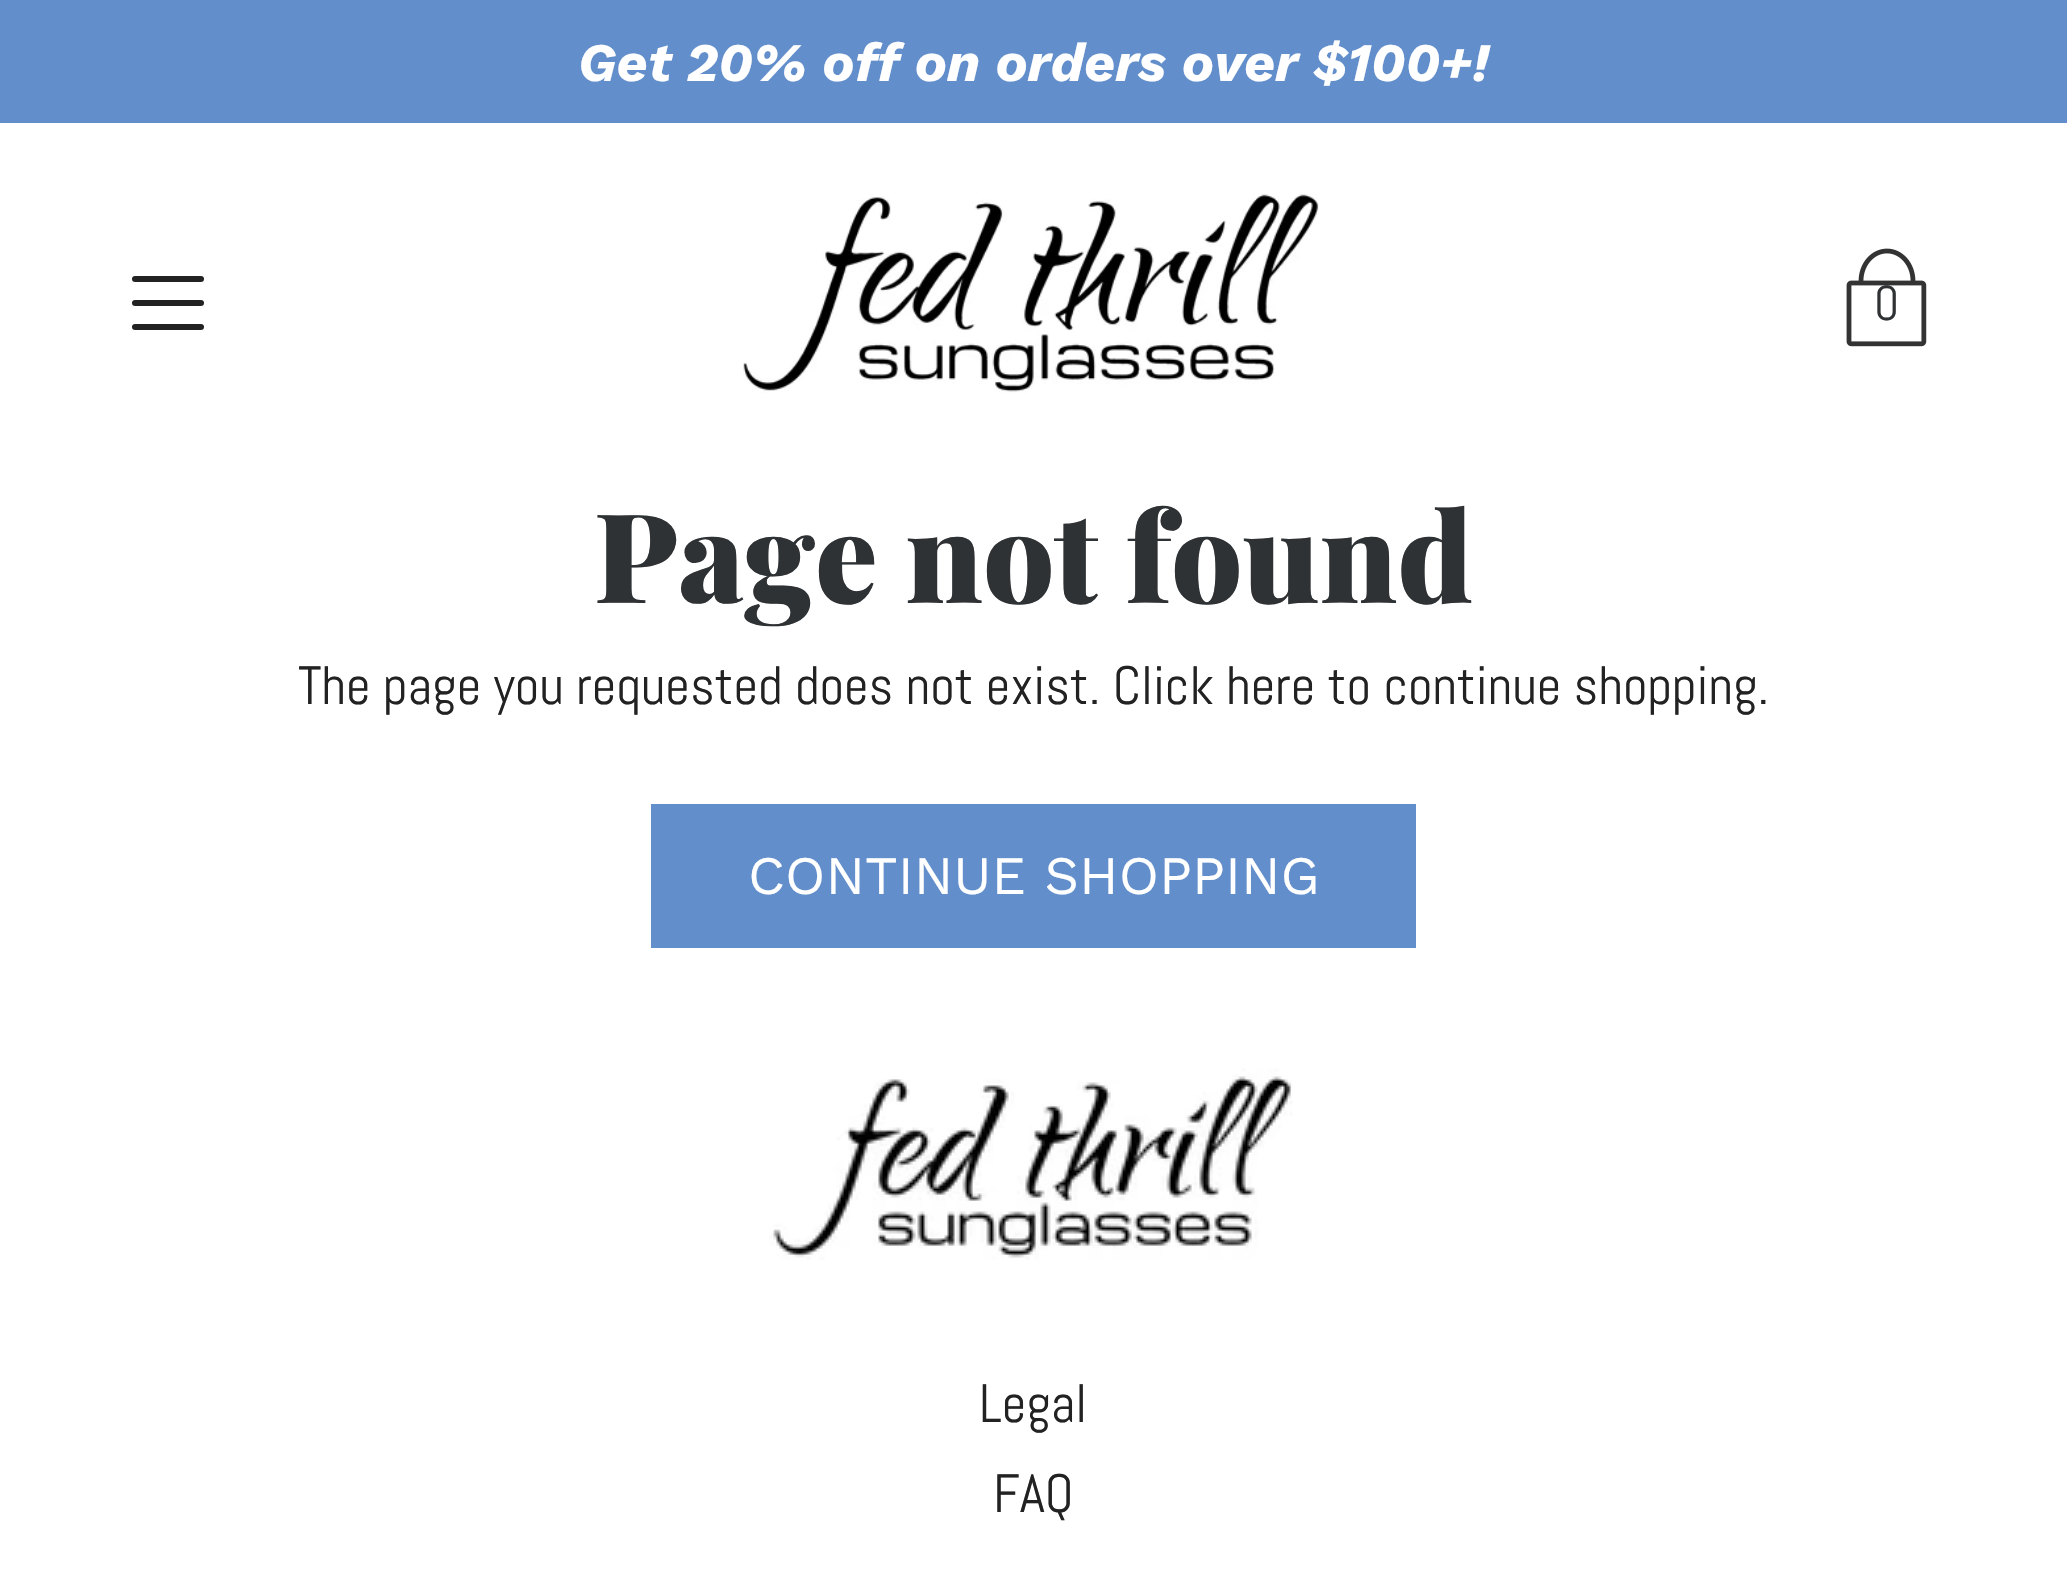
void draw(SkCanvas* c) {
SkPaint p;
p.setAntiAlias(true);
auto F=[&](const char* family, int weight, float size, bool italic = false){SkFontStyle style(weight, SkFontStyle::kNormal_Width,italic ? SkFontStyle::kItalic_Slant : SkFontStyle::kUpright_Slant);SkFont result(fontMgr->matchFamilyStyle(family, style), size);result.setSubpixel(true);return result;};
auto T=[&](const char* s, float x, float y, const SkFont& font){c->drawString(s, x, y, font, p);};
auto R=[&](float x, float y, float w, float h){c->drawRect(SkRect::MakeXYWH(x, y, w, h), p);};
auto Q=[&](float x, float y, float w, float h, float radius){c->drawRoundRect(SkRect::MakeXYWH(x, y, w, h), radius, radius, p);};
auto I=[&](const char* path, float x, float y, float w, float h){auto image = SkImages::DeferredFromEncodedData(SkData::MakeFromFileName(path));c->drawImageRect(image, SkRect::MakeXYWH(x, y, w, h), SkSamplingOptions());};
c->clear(0xffffffff);
p.setColor(0xff628ecb);
R(0,0,2067,123);
auto f1 = F("Work Sans",700,54,true);
p.setColor(0xffffffff);
T("Get 20% off on orders over $100+!",578,81,f1);
I("1.png",743,194,576,199);
p.setColor(0xff222222);
Q(132,300,72,6,3);
Q(132,276,72,6,3);
Q(132,324,72,6,3);
I("2.png",1846,248,81,99);
auto f2 = F("Abel",400,49);
p.setColor(0xff2e3234);
T("0",1874,320,f2);
auto f3 = F("Playfair Display",900,124.25);
T("Page not found",594,603,f3);
auto f4 = F("Abel",400,54);
p.setColor(0xff222222);
T("The page you requested does not exist. Click here to continue shopping.",298,704,f4);
p.setColor(0xff628ecb);
R(651,804,765,144);
auto f5 = F("Work Sans",400,54);
p.setColor(0xffffffff);
T("CONTINUE SHOPPING",748,894,f5);
I("3.png",769,1068,524,192);
p.setColor(0xff222222);
T("Legal",979,1422,f4);
T("FAQ",993,1512,f4);
}
